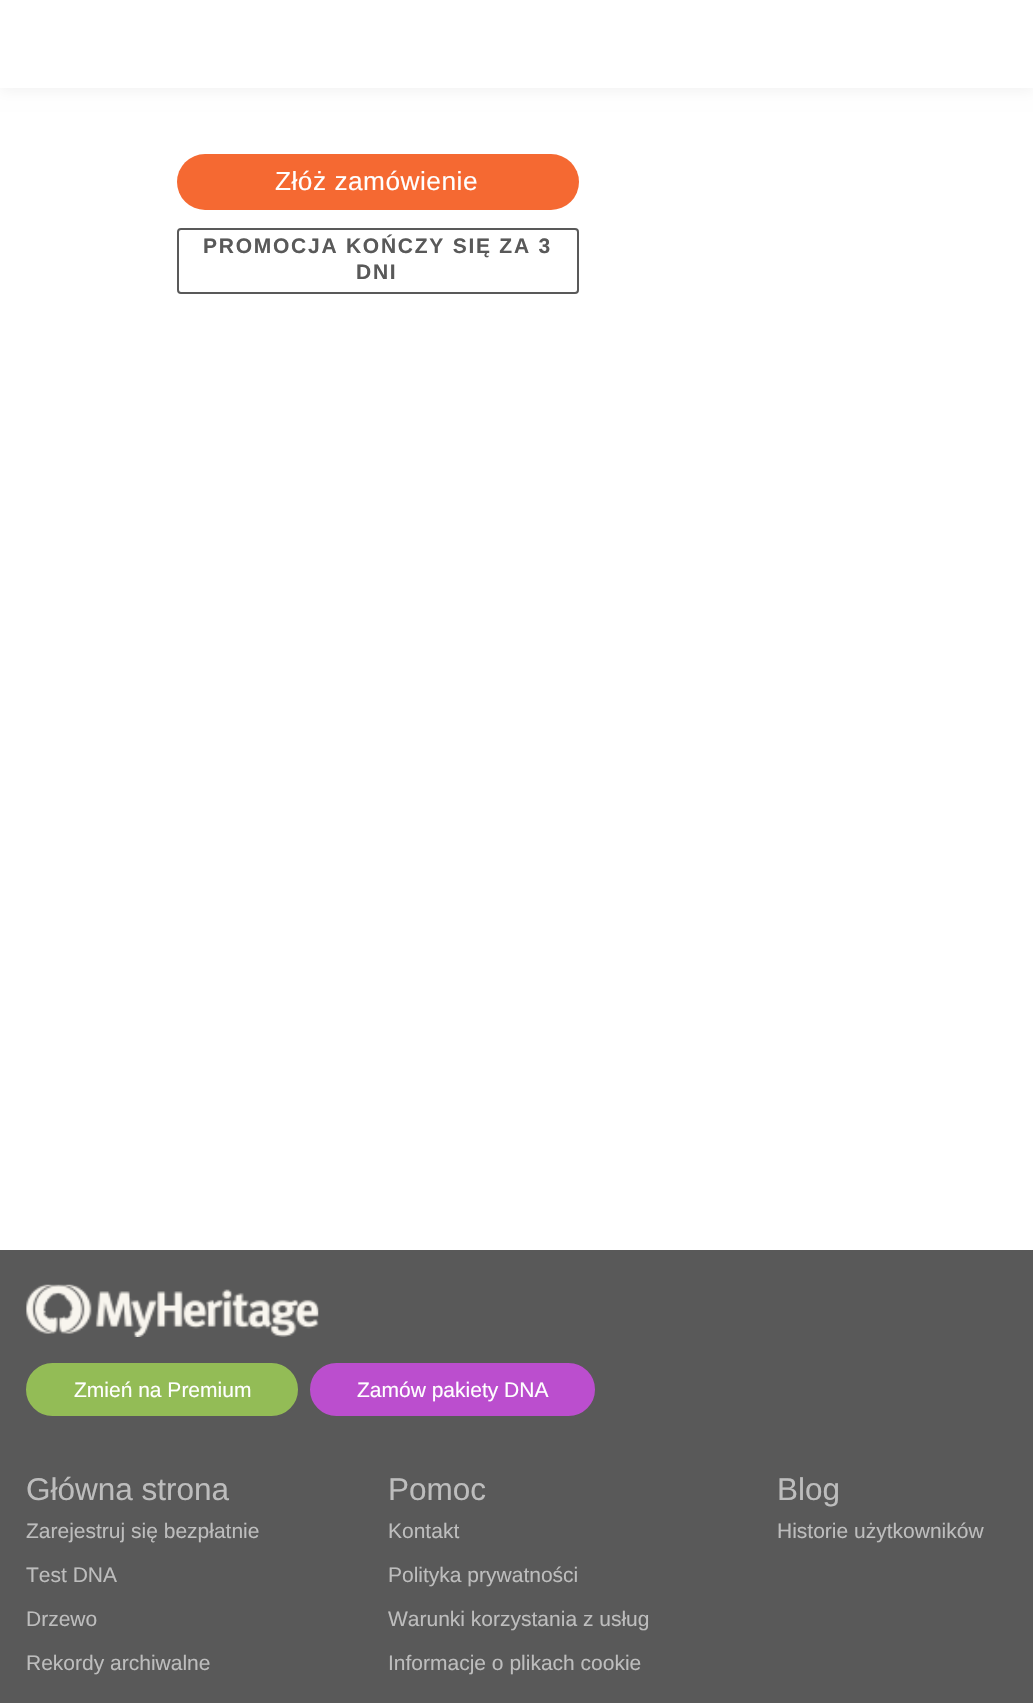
void draw(SkCanvas* c) {
SkPaint p;
p.setAntiAlias(true);
auto F=[&](const char* family, int weight, float size, bool italic = false){SkFontStyle style(weight, SkFontStyle::kNormal_Width,italic ? SkFontStyle::kItalic_Slant : SkFontStyle::kUpright_Slant);SkFont result(fontMgr->matchFamilyStyle(family, style), size);result.setSubpixel(true);return result;};
auto T=[&](const char* s, float x, float y, const SkFont& font){c->drawString(s, x, y, font, p);};
auto L=[&](const char* s, float x, float y, const SkFont& font, const SkPaint& ink, float letter, float word){std::vector<SkGlyphID> glyphs(font.countText(s, strlen(s), SkTextEncoding::kUTF8));std::vector<float> xs(glyphs.size());font.textToGlyphs(s, strlen(s), SkTextEncoding::kUTF8, glyphs);font.getXPos(glyphs, xs, x);float extra = 0;for (size_t i = 0; i < glyphs.size(); i++) {xs[i] += extra;extra += letter + word * (glyphs[i] == font.unicharToGlyph(' '));}c->drawTextBlob(SkTextBlob::MakeFromPosHGlyphs(glyphs, xs, y, font), 0, 0, ink);};
auto R=[&](float x, float y, float w, float h){c->drawRect(SkRect::MakeXYWH(x, y, w, h), p);};
auto Q=[&](float x, float y, float w, float h, float radius){c->drawRoundRect(SkRect::MakeXYWH(x, y, w, h), radius, radius, p);};
auto I=[&](const char* path, float x, float y, float w, float h){auto image = SkImages::DeferredFromEncodedData(SkData::MakeFromFileName(path));c->drawImageRect(image, SkRect::MakeXYWH(x, y, w, h), SkSamplingOptions());};
c->clear(0xffffffff);
p.setColor(0x0d000000);
p.setMaskFilter(SkMaskFilter::MakeBlur(kNormal_SkBlurStyle, 7));
c->drawRect(SkRect::MakeXYWH(0,4,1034,87),p);
p.setMaskFilter(nullptr);
p.setColor(0xffffffff);
R(0,0,1033,88);
p.setColor(0xfff56932);
Q(177,154,402,56,28);
auto f1 = F("Liberation Sans",400,26.25);
p.setColor(0xffffffff);
L("Złóż zamówienie",275,190,f1,p,.5,0);
p.setStroke(true);
p.setStrokeWidth(2);
p.setColor(0xff595959);
c->drawRoundRect(SkRect::MakeXYWH(178,229,400,64),3,3,p);
auto f2 = F("Liberation Sans",700,21);
p.setStroke(false);
L("PROMOCJA KOŃCZY SIĘ ZA 3",203,253,f2,p,1.75,0);
L("DNI",356,279,f2,p,1.75,0);
R(0,1250,1033,453);
I("1.png",26,1284,293,53);
p.setColor(0xff93bc56);
c->drawRoundRect(SkRect::MakeXYWH(27,1364,270,51),25.5,25.5,p);
p.setStroke(true);
c->drawRoundRect(SkRect::MakeXYWH(27,1364,270,51),25.5,25.5,p);
auto f3 = F("Liberation Sans",400,21);
p.setStroke(false);
p.setColor(0xffffffff);
T("Zmień na Premium",74,1397,f3);
p.setColor(0xffbb4ece);
c->drawRoundRect(SkRect::MakeXYWH(311,1364,283,51),25.5,25.5,p);
p.setStroke(true);
c->drawRoundRect(SkRect::MakeXYWH(311,1364,283,51),25.5,25.5,p);
p.setStroke(false);
p.setColor(0xffffffff);
T("Zamów pakiety DNA",357,1397,f3);
auto f4 = F("Liberation Sans",400,31.5);
p.setColor(0xffbdbdbd);
T("Główna strona",26,1500,f4);
T("Zarejestruj się bezpłatnie",26,1538,f3);
T("Test DNA",26,1582,f3);
T("Drzewo",26,1626,f3);
T("Rekordy archiwalne",26,1670,f3);
T("Pomoc",388,1500,f4);
T("Kontakt",388,1538,f3);
T("Polityka prywatności",388,1582,f3);
T("Warunki korzystania z usług",388,1626,f3);
T("Informacje o plikach cookie",388,1670,f3);
T("Blog",777,1500,f4);
T("Historie użytkowników",777,1538,f3);
}
